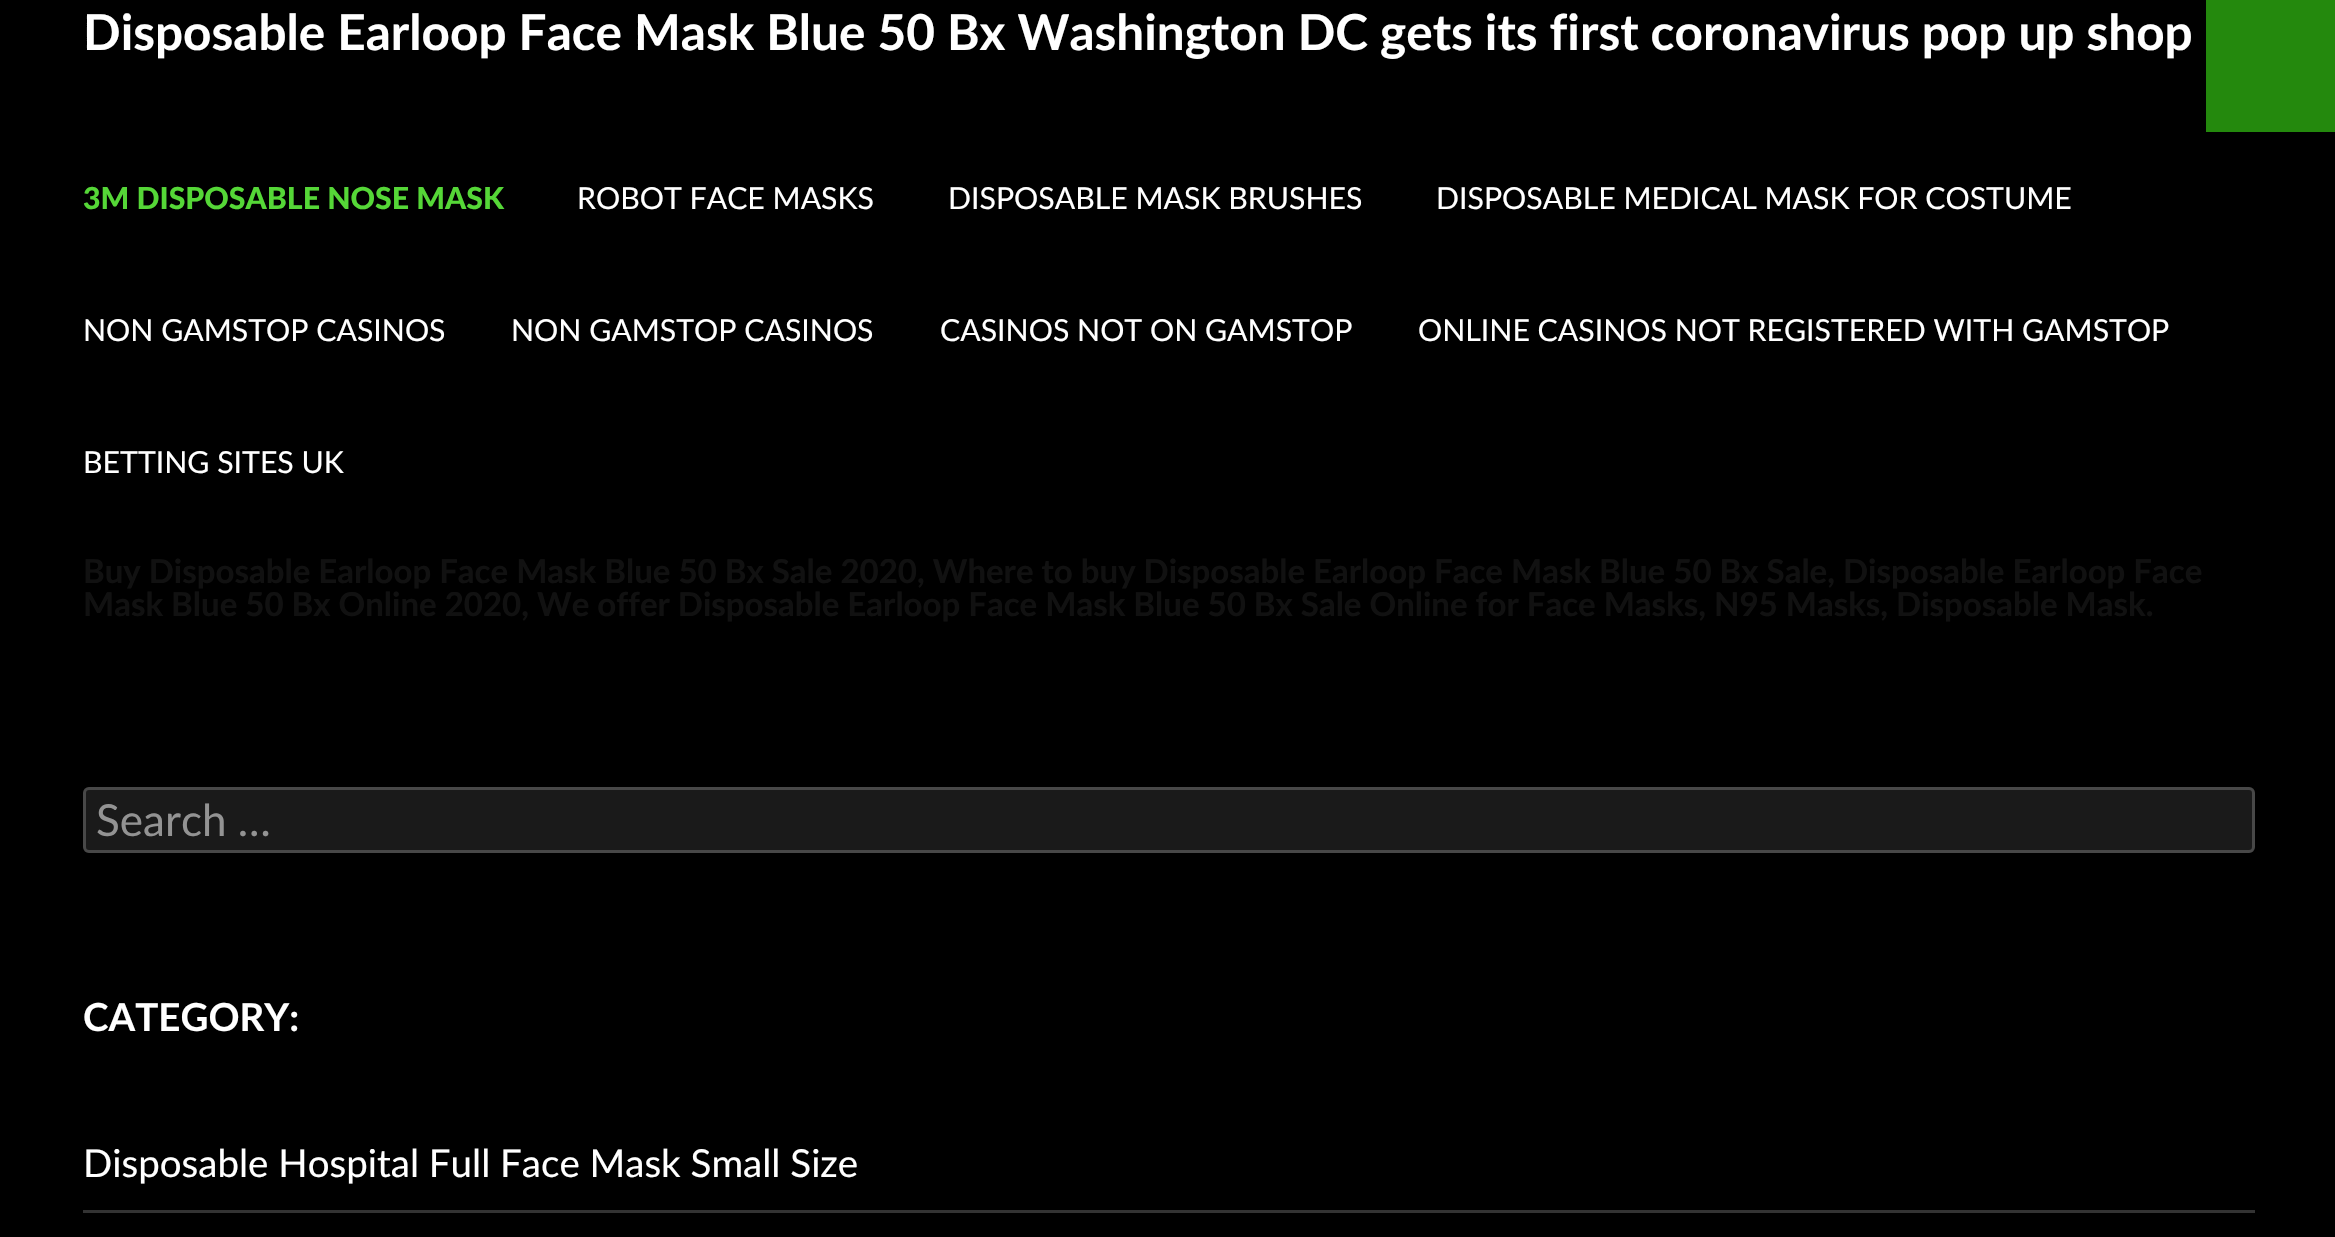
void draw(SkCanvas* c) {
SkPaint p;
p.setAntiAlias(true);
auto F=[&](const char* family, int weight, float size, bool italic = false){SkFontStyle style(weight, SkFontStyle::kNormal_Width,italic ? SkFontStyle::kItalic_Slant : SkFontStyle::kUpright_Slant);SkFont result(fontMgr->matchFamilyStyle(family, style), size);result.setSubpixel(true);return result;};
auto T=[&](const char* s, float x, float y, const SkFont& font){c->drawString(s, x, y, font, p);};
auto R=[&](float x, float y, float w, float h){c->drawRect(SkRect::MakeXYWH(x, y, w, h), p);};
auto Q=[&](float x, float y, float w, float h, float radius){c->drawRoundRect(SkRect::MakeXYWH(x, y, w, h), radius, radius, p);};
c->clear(0xff000000);
auto f1 = F("Lato",700,49.5);
p.setColor(0xffffffff);
T("Disposable Earloop Face Mask Blue 50 Bx Washington DC gets its first coronavirus pop up shop",83,50,f1);
p.setColor(0xff24890d);
R(2206,0,129,132);
auto f2 = F("Lato",900,30.25);
p.setColor(0xff55d737);
T("3M DISPOSABLE NOSE MASK",83,209,f2);
auto f3 = F("Lato",400,30.25);
p.setColor(0xffffffff);
T("ROBOT FACE MASKS",577,209,f3);
T("DISPOSABLE MASK BRUSHES",948,209,f3);
T("DISPOSABLE MEDICAL MASK FOR COSTUME",1436,209,f3);
T("NON GAMSTOP CASINOS",83,341,f3);
T("NON GAMSTOP CASINOS",511,341,f3);
T("CASINOS NOT ON GAMSTOP",940,341,f3);
T("ONLINE CASINOS NOT REGISTERED WITH GAMSTOP",1418,341,f3);
T("BETTING SITES UK",83,473,f3);
auto f4 = F("Lato",700,33);
p.setColor(0xff111111);
T("Buy Disposable Earloop Face Mask Blue 50 Bx Sale 2020, Where to buy Disposable Earloop Face Mask Blue 50 Bx Sale, Disposable Earloop Face",83,583,f4);
T("Mask Blue 50 Bx Online 2020, We offer Disposable Earloop Face Mask Blue 50 Bx Sale Online for Face Masks, N95 Masks, Disposable Mask.",83,616,f4);
p.setColor(0xff1a1a1a);
Q(83,787,2172,66,6);
p.setStroke(true);
p.setStrokeWidth(3);
p.setColor(0x33ffffff);
c->drawRoundRect(SkRect::MakeXYWH(84.5,788.5,2169,63),4.5,4.5,p);
auto f5 = F("Lato",400,44);
p.setStroke(false);
p.setColor(0xff939393);
T("Search …",96,836,f5);
auto f6 = F("Lato",700,38.5);
p.setColor(0xffffffff);
T("CATEGORY:",83,1031,f6);
auto f7 = F("Lato",400,38.5);
T("Disposable Hospital Full Face Mask Small Size",83,1177,f7);
p.setColor(0xff333333);
R(83,1210,2172,3);
}
